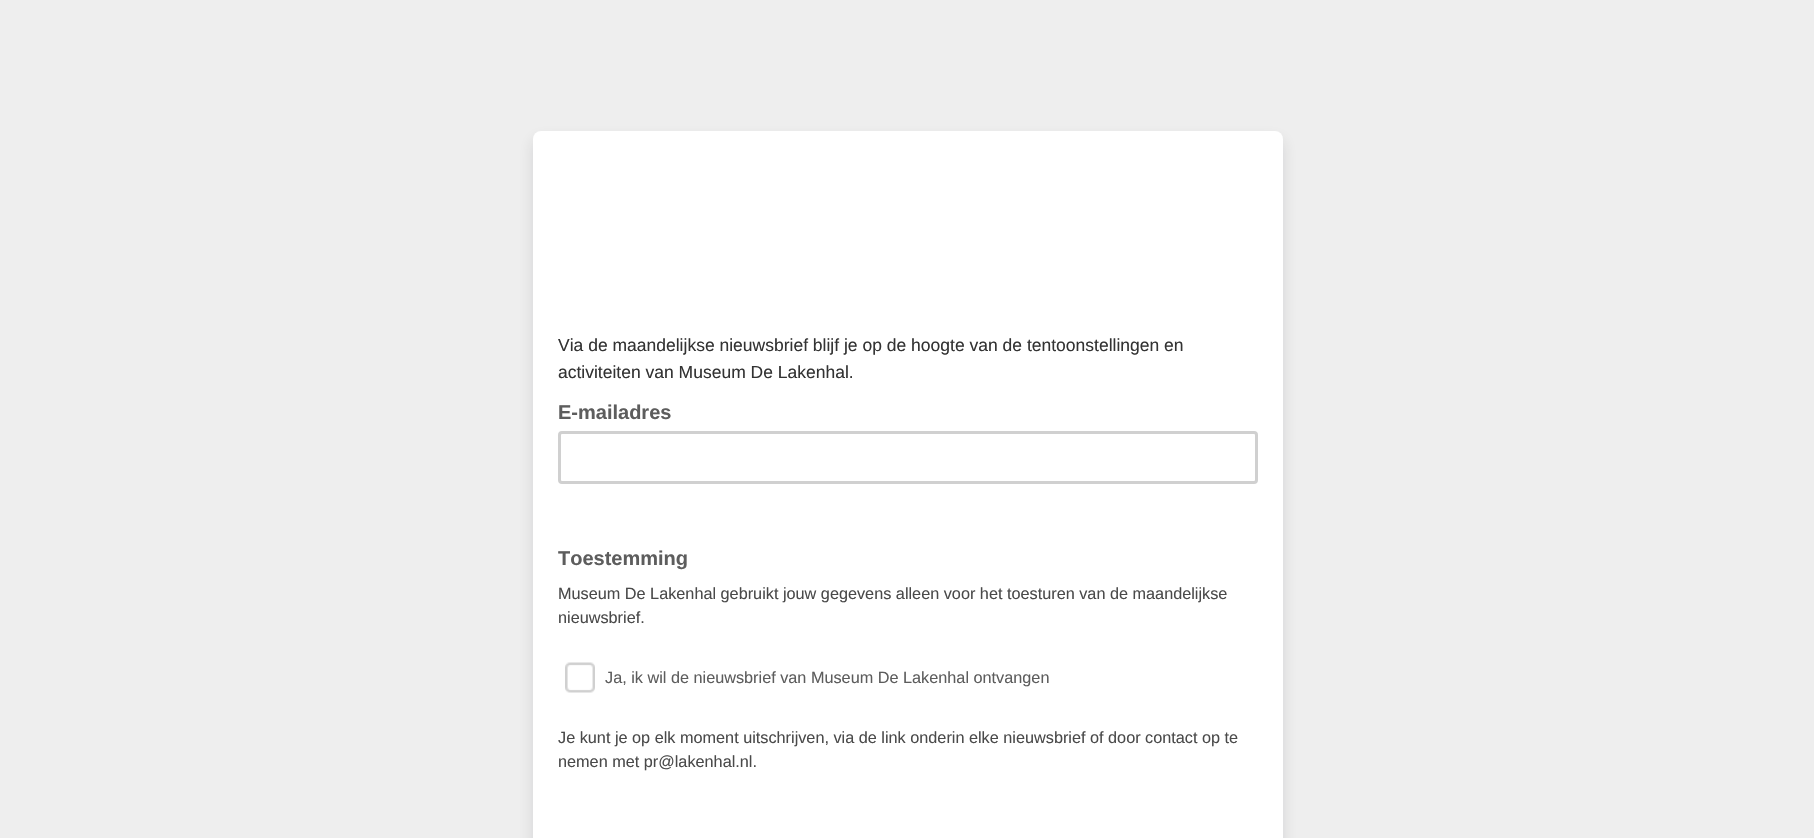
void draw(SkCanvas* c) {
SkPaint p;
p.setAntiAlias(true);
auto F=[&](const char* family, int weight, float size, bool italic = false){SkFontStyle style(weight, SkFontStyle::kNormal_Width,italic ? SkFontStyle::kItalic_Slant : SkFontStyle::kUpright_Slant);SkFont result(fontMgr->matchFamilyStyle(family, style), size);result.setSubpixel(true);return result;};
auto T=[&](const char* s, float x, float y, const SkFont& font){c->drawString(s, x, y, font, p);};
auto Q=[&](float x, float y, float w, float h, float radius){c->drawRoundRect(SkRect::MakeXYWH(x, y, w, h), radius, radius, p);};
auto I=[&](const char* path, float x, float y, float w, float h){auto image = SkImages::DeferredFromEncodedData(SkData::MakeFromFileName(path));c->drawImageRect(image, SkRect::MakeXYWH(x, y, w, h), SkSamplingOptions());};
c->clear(0xffeeeeee);
p.setColor(0x1f0d1216);
p.setMaskFilter(SkMaskFilter::MakeBlur(kNormal_SkBlurStyle, 7.5));
c->drawRoundRect(SkRect::MakeXYWH(533,139,750,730),8,8,p);
p.setMaskFilter(nullptr);
p.setColor(0xffffffff);
Q(533,131,750,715,8);
auto f1 = F("Liberation Sans",400,17.5);
p.setColor(0xff333333);
T("Via de maandelijkse nieuwsbrief blijf je op de hoogte van de tentoonstellingen en",558,351,f1);
T("activiteiten van Museum De Lakenhal.",558,378,f1);
auto f2 = F("Liberation Sans",700,20);
p.setColor(0xff5d5d5d);
T("E-mailadres",558,419,f2);
p.setStroke(true);
p.setStrokeWidth(3);
p.setColor(0xffd0d0d0);
c->drawRoundRect(SkRect::MakeXYWH(559.5,432.5,697,50),2.5,2.5,p);
p.setStroke(false);
p.setColor(0xff5d5d5d);
T("Toestemming",558,565,f2);
auto f3 = F("Liberation Sans",400,16.25);
p.setColor(0xff4a4a4a);
T("Museum De Lakenhal gebruikt jouw gegevens alleen voor het toesturen van de maandelijkse",558,599,f3);
T("nieuwsbrief.",558,623,f3);
I("1.png",565,662,30,31);
p.setColor(0xff5d5d5d);
T("Ja, ik wil de nieuwsbrief van Museum De Lakenhal ontvangen",605,683,f3);
p.setColor(0xff4a4a4a);
T("Je kunt je op elk moment uitschrijven, via de link onderin elke nieuwsbrief of door contact op te",558,743,f3);
T("nemen met pr@lakenhal.nl.",558,767,f3);
}
